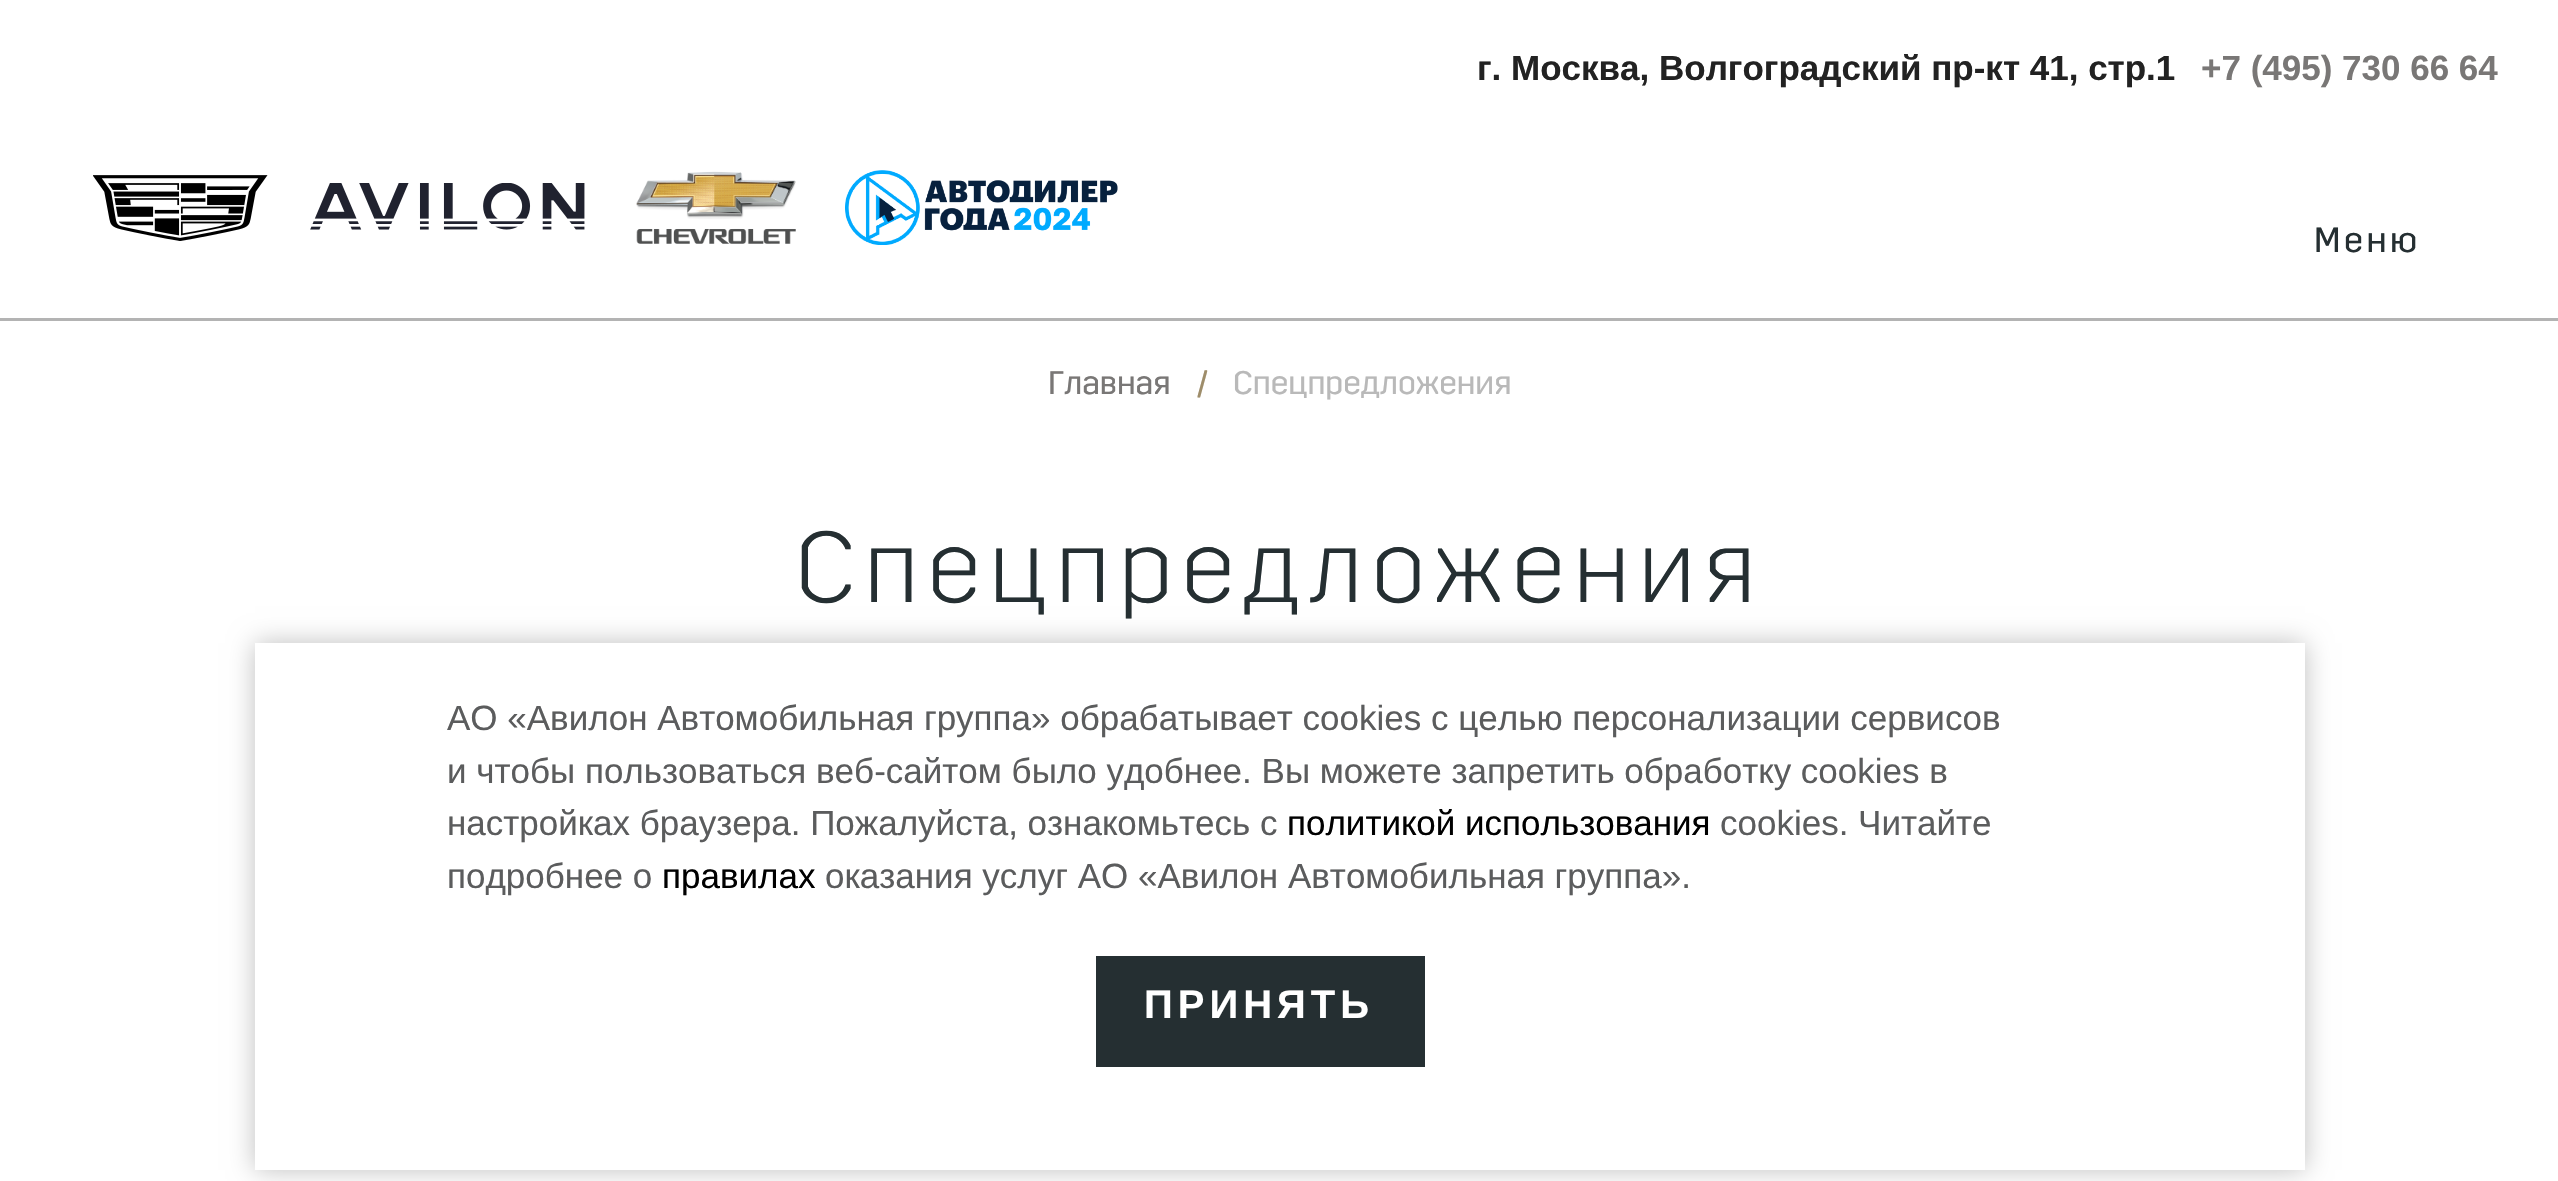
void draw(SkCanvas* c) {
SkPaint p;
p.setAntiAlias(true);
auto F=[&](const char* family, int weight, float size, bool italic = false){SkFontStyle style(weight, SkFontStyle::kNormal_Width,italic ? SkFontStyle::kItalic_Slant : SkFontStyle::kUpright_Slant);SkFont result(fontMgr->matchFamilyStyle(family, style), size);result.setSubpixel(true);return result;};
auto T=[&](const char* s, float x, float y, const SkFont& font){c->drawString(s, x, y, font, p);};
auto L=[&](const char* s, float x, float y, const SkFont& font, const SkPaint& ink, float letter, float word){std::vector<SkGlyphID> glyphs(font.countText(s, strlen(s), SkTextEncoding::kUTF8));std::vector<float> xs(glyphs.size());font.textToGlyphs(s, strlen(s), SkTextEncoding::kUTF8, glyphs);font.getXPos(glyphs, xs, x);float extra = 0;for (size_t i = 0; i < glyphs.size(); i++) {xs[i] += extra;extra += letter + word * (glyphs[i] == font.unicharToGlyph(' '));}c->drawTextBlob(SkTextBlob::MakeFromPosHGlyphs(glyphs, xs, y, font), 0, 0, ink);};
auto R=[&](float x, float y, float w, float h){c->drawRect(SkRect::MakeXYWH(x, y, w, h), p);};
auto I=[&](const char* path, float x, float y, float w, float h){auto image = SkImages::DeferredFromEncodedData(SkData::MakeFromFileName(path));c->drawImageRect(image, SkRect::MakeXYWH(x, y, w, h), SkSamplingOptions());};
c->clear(0xffffffff);
p.setColor(0xffb3b3b3);
R(0,318,2558,3);
auto f1 = F("Liberation Sans",700,35);
p.setColor(0xff222222);
T("г. Москва, Волгоградский пр-кт 41, стр.1",1477,80,f1);
p.setColor(0xff797776);
T("+7 (495) 730 66 64",2201,80,f1);
I("1.png",93,175,175,66);
I("2.png",310,183,275,47);
I("3.png",636,171,160,73);
I("4.png",845,170,273,75);
auto f2 = F("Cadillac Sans",400,35);
p.setColor(0xff252f32);
L("Меню",2314,252,f2,p,3.5,0);
auto f3 = F("Cadillac Sans",400,32.5);
p.setColor(0xff797776);
T("Главная",1048,394,f3);
auto f4 = F("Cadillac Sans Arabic",400,32.5);
p.setColor(0xff9e8d6a);
T("/",1196,394,f4);
p.setColor(0xffb9b9b9);
T("Спецпредложения",1233,394,f3);
auto f5 = F("Cadillac Sans",300,100);
p.setColor(0xff252f32);
L("Спецпредложения",795,602,f5,p,8.5,0);
p.setColor(0x40000000);
p.setMaskFilter(SkMaskFilter::MakeBlur(kNormal_SkBlurStyle, 12.5));
c->drawRect(SkRect::MakeXYWH(255,643,2050,527),p);
p.setMaskFilter(nullptr);
p.setColor(0xffffffff);
R(255,643,2050,527);
auto f6 = F("Liberation Sans",400,35);
p.setColor(0xff5b5c5d);
T("АО «Авилон Автомобильная группа» обрабатывает cookies с целью персонализации сервисов",447,730,f6);
T("и чтобы пользоваться веб-сайтом было удобнее. Вы можете запретить обработку сookies в",447,783,f6);
T("настройках браузера. Пожалуйста, ознакомьтесь с",447,835,f6);
p.setColor(0xff000000);
T("политикой использования",1287,835,f6);
p.setColor(0xff5b5c5d);
T("cookies. Читайте",1720,835,f6);
T("подробнее о",447,888,f6);
p.setColor(0xff000000);
T("правилах",662,888,f6);
p.setColor(0xff5b5c5d);
T("оказания услуг АО «Авилон Автомобильная группа».",825,888,f6);
p.setColor(0xff252f32);
R(1096,956,329,111);
auto f7 = F("Liberation Sans",700,40);
p.setColor(0xffffffff);
L("ПРИНЯТЬ",1144,1018,f7,p,5,0);
}
